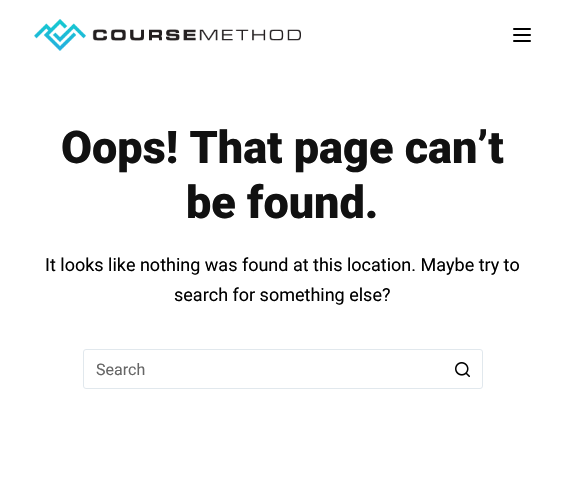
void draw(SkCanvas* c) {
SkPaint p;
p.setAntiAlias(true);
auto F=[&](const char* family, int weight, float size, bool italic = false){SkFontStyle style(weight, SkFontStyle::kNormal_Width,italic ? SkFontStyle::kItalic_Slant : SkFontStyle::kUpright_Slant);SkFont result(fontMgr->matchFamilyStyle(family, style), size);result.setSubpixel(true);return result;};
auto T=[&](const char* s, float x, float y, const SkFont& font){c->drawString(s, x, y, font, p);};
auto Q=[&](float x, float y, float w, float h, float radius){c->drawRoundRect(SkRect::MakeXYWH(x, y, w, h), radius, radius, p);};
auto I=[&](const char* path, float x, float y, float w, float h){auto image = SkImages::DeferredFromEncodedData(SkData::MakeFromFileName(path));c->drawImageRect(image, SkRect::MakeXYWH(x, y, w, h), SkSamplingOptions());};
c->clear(0xffffffff);
I("1.png",34,19,267,32);
p.setColor(0xff000000);
Q(513,28,18,2,1);
Q(513,34,18,2,1);
Q(513,40,18,2,1);
auto f1 = F("Roboto",900,45);
p.setColor(0xff111111);
T("Oops! That page can’t",61,163,f1);
T("be found.",186,218,f1);
auto f2 = F("Roboto",400,18);
p.setColor(0xff000000);
T("It looks like nothing was found at this location. Maybe try to",45,271,f2);
T("search for something else?",174,301,f2);
p.setStroke(true);
p.setStrokeWidth(1);
p.setColor(0xffe1e8ed);
c->drawRoundRect(SkRect::MakeXYWH(83.5,349.5,399,39),2.5,2.5,p);
auto f3 = F("Roboto",400,16);
p.setStroke(false);
p.setColor(0xff666666);
T("Search",96,375,f3);
I("2.png",455,362,15,15);
}
